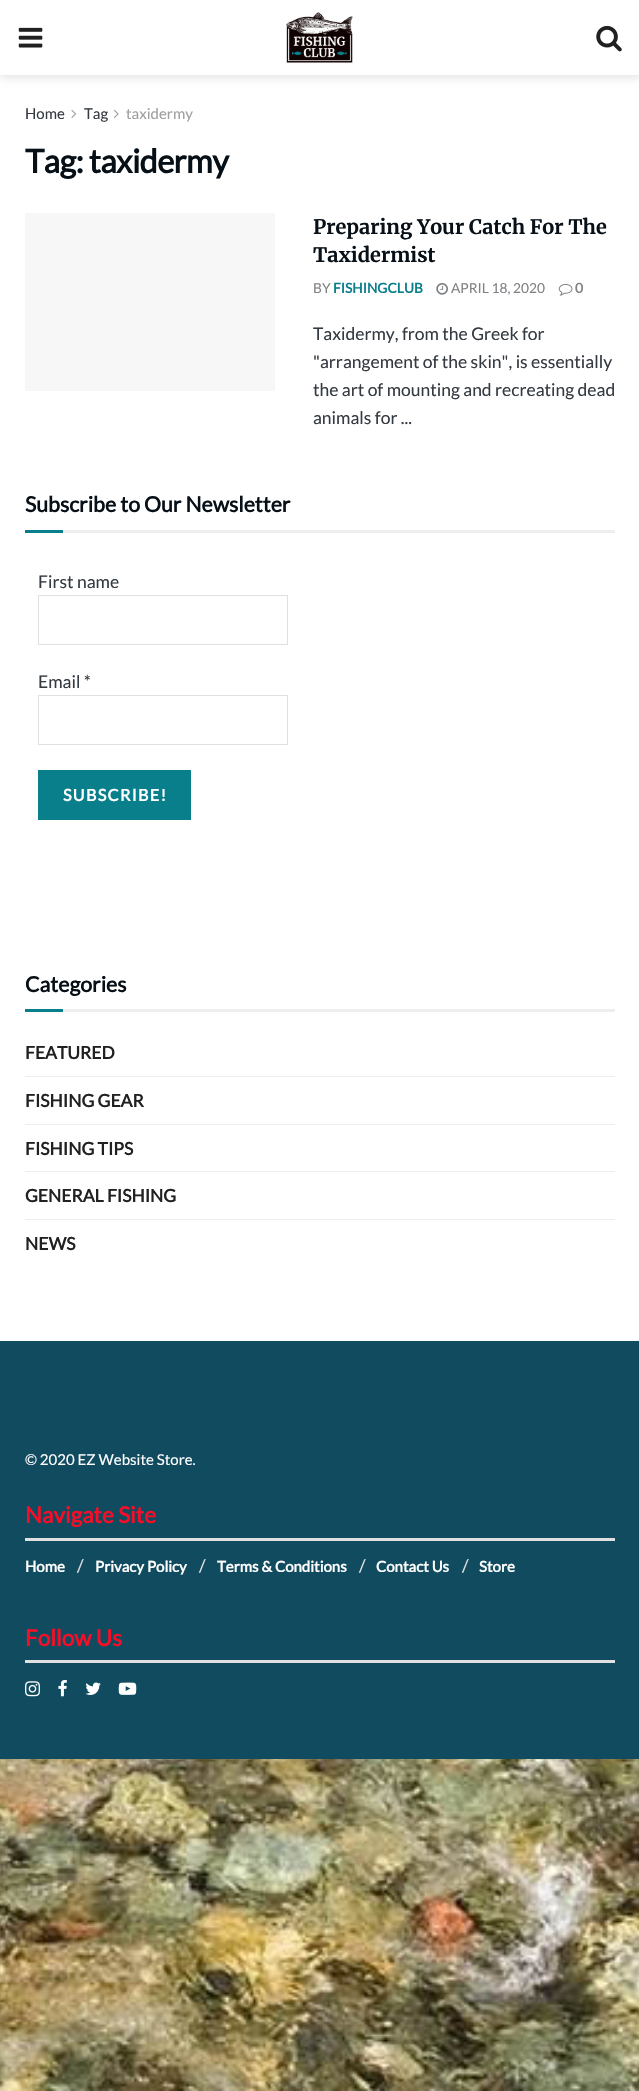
void draw(SkCanvas* c) {
SkPaint p;
p.setAntiAlias(true);
auto F=[&](const char* family, int weight, float size, bool italic = false){SkFontStyle style(weight, SkFontStyle::kNormal_Width,italic ? SkFontStyle::kItalic_Slant : SkFontStyle::kUpright_Slant);SkFont result(fontMgr->matchFamilyStyle(family, style), size);result.setSubpixel(true);return result;};
auto T=[&](const char* s, float x, float y, const SkFont& font){c->drawString(s, x, y, font, p);};
auto L=[&](const char* s, float x, float y, const SkFont& font, const SkPaint& ink, float letter, float word){std::vector<SkGlyphID> glyphs(font.countText(s, strlen(s), SkTextEncoding::kUTF8));std::vector<float> xs(glyphs.size());font.textToGlyphs(s, strlen(s), SkTextEncoding::kUTF8, glyphs);font.getXPos(glyphs, xs, x);float extra = 0;for (size_t i = 0; i < glyphs.size(); i++) {xs[i] += extra;extra += letter + word * (glyphs[i] == font.unicharToGlyph(' '));}c->drawTextBlob(SkTextBlob::MakeFromPosHGlyphs(glyphs, xs, y, font), 0, 0, ink);};
auto R=[&](float x, float y, float w, float h){c->drawRect(SkRect::MakeXYWH(x, y, w, h), p);};
auto I=[&](const char* path, float x, float y, float w, float h){auto image = SkImages::DeferredFromEncodedData(SkData::MakeFromFileName(path));c->drawImageRect(image, SkRect::MakeXYWH(x, y, w, h), SkSamplingOptions());};
c->clear(0xffffffff);
I("1.png",0,1759,639,332);
p.setColor(0x1a000000);
p.setMaskFilter(SkMaskFilter::MakeBlur(kNormal_SkBlurStyle, 4));
c->drawRect(SkRect::MakeXYWH(0,3,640,75),p);
p.setMaskFilter(nullptr);
p.setColor(0xffffffff);
R(0,0,639,75);
I("2.png",18,27,25,21);
I("3.png",286,12,67,51);
I("4.png",596,25,26,27);
auto f1 = F("Lato",400,15);
p.setColor(0xff343a41);
T("Home",25,119,f1);
I("5.png",71,109,6,9);
T("Tag",84,119,f1);
I("6.png",113,109,6,9);
p.setColor(0xffa0a0a0);
T("taxidermy",126,119,f1);
auto f2 = F("Lato",700,32.5);
p.setColor(0xff070f17);
L("Tag: taxidermy",25,173,f2,p,-.6,0);
p.setColor(0xfff7f7f7);
R(25,213,250,178);
auto f3 = F("Merriweather",700,20);
p.setColor(0xff070f17);
T("Preparing Your Catch For The",313,234,f3);
T("Taxidermist",313,262,f3);
auto f4 = F("Lato",400,13.75);
p.setColor(0xff808386);
T("BY",313,293,f4);
auto f5 = F("Lato",700,13.75);
p.setColor(0xff0a7f8c);
T("FISHINGCLUB",333,293,f5);
I("7.png",436,283,12,12);
p.setColor(0xff808386);
T("APRIL 18, 2020",451,293,f4);
I("8.png",558,283,15,13);
T("0",575,293,f5);
auto f6 = F("Lato",400,17.5);
p.setColor(0xff343a41);
T("Taxidermy, from the Greek for",313,340,f6);
T("\"arrangement of the skin\", is essentially",313,368,f6);
T("the art of mounting and recreating dead",313,396,f6);
T("animals for ...",313,424,f6);
p.setColor(0xffeeeeee);
R(63,530,552,3);
auto f7 = F("Lato",700,21.25);
p.setColor(0xff070f17);
T("Subscribe to Our Newsletter",25,512,f7);
p.setColor(0xff0a7f8c);
R(25,530,38,3);
p.setColor(0xff343a41);
T("First name",38,588,f6);
p.setStroke(true);
p.setStrokeWidth(1);
p.setColor(0xffe0e0e0);
c->drawRect(SkRect::MakeXYWH(38.5,595.5,249,49),p);
p.setStroke(false);
p.setColor(0xff343a41);
T("Email *",38,688,f6);
p.setStroke(true);
p.setColor(0xffe0e0e0);
c->drawRect(SkRect::MakeXYWH(38.5,695.5,249,49),p);
p.setStroke(false);
p.setColor(0xff0a7f8c);
R(38,770,153,50);
auto f8 = F("Lato",700,16.25);
p.setColor(0xffffffff);
L("SUBSCRIBE!",63,801,f8,p,1.25,0);
p.setColor(0xffeeeeee);
R(63,1009,552,3);
p.setColor(0xff070f17);
T("Categories",25,992,f7);
p.setColor(0xff0a7f8c);
R(25,1009,38,3);
auto f9 = F("Lato",700,17.5);
p.setColor(0xff212121);
T("FEATURED",25,1059,f9);
p.setColor(0xffeeeeee);
R(25,1076,590,1);
p.setColor(0xff212121);
T("FISHING GEAR",25,1107,f9);
p.setColor(0xffeeeeee);
R(25,1124,590,1);
p.setColor(0xff212121);
T("FISHING TIPS",25,1155,f9);
p.setColor(0xffeeeeee);
R(25,1171,590,1);
p.setColor(0xff212121);
T("GENERAL FISHING",25,1202,f9);
p.setColor(0xffeeeeee);
R(25,1219,590,1);
p.setColor(0xff212121);
T("NEWS",25,1250,f9);
p.setColor(0xff114b5f);
R(0,1341,639,418);
p.setColor(0xffffffff);
T("© 2020 EZ Website Store.",25,1465,f1);
p.setColor(0xffe0e0e0);
R(25,1538,590,3);
auto f10 = F("Lato",700,22.5);
p.setColor(0xfff70d28);
T("Navigate Site",25,1523,f10);
auto f11 = F("Lato",700,15);
p.setColor(0xffffffff);
T("Home",25,1572,f11);
p.setColor(0xffe0e0e0);
T("/",77,1572,f6);
p.setColor(0xffffffff);
T("Privacy Policy",95,1572,f11);
p.setColor(0xffe0e0e0);
T("/",199,1572,f6);
p.setColor(0xffffffff);
T("Terms & Conditions",217,1572,f11);
p.setColor(0xffe0e0e0);
T("/",359,1572,f6);
p.setColor(0xffffffff);
T("Contact Us",376,1572,f11);
p.setColor(0xffe0e0e0);
T("/",462,1572,f6);
p.setColor(0xffffffff);
T("Store",479,1572,f11);
p.setColor(0xffe0e0e0);
R(25,1660,590,3);
p.setColor(0xfff70d28);
T("Follow Us",25,1646,f10);
I("9.png",25,1681,15,16);
I("10.png",58,1680,9,17);
I("11.png",85,1682,16,13);
I("12.png",118,1682,19,13);
}
